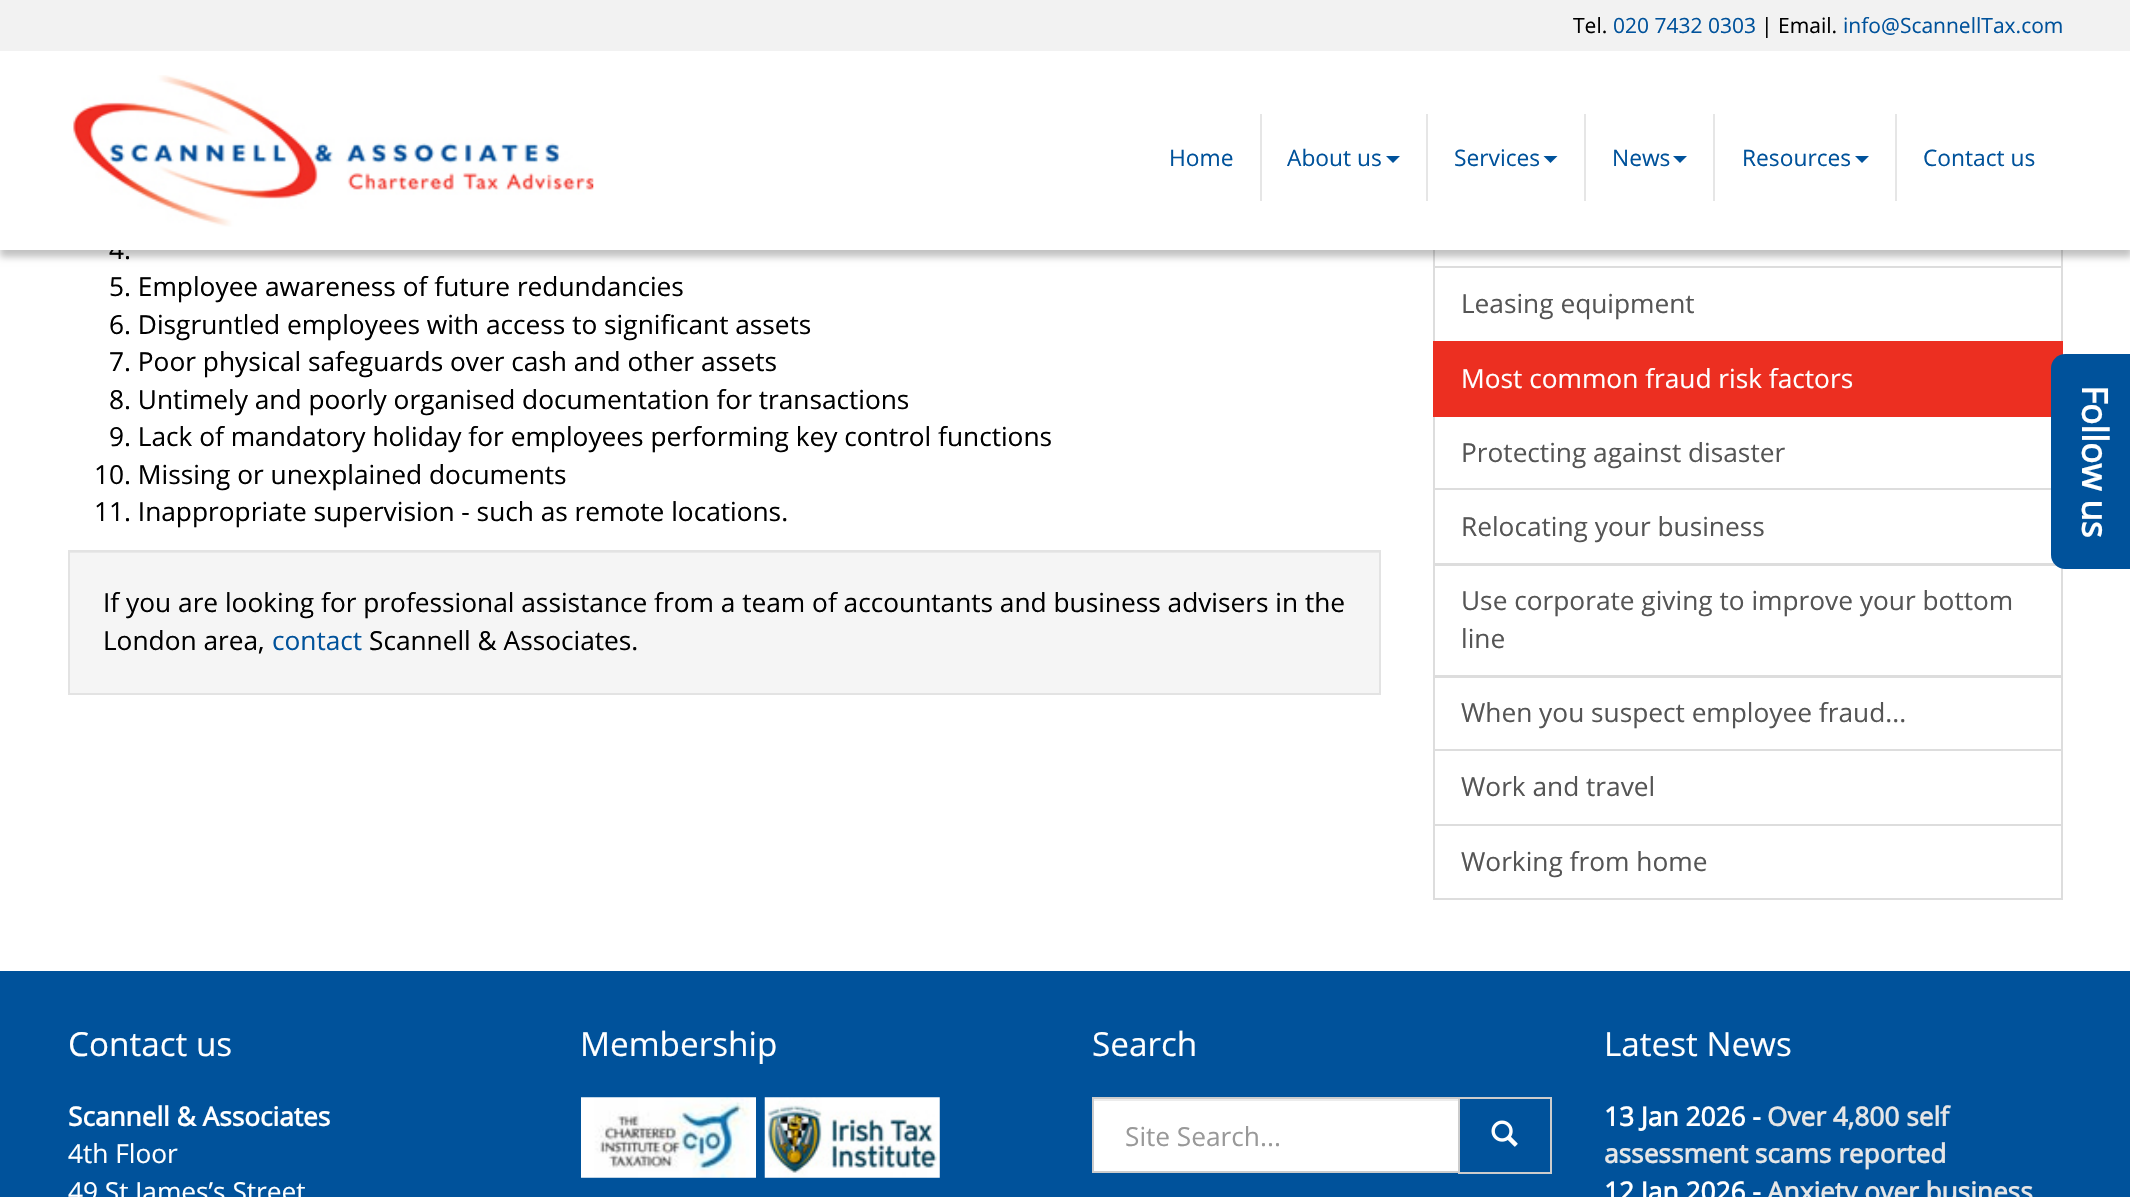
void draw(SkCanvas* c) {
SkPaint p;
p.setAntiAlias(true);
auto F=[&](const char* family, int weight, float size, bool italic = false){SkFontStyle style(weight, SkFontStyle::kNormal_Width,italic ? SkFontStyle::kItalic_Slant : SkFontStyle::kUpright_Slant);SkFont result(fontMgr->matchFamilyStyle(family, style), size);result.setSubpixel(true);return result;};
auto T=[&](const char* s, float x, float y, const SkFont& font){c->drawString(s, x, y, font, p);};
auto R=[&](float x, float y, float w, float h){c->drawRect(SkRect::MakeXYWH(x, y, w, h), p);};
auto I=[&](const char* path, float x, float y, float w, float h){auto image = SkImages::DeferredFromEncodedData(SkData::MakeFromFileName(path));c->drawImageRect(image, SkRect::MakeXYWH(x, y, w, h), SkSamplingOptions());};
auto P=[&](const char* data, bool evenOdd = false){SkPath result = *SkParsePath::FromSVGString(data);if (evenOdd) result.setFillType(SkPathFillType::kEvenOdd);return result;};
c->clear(0xffffffff);
p.setStroke(true);
p.setStrokeWidth(2);
p.setColor(0xffdddddd);
c->drawRect(SkRect::MakeXYWH(1434,194,628,73),p);
c->drawRect(SkRect::MakeXYWH(1434,267,628,75),p);
p.setStroke(false);
p.setColor(0x3d000000);
p.setMaskFilter(SkMaskFilter::MakeBlur(kNormal_SkBlurStyle, 3.5));
c->drawRect(SkRect::MakeXYWH(0,7,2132,250),p);
p.setMaskFilter(nullptr);
auto f1 = F("Open Sans",400,26.25);
p.setColor(0xff000000);
T("4.",109,259,f1);
p.setColor(0xffffffff);
R(0,51,2130,199);
p.setColor(0xfff2f2f2);
R(0,0,2130,51);
auto f2 = F("Open Sans",400,21);
p.setColor(0xff000000);
T("Tel.",1573,33,f2);
p.setColor(0xff00529b);
T("020 7432 0303",1613,33,f2);
p.setColor(0xff000000);
T("| Email.",1761,33,f2);
p.setColor(0xff00529b);
T("info@ScannellTax.com",1843,33,f2);
I("1.png",73,75,521,152);
auto f3 = F("Open Sans",400,22.75);
T("Home",1169,166,f3);
p.setColor(0xffe6e6e6);
R(1260,114,2,87);
p.setColor(0xff00529b);
T("About us",1287,166,f3);
c->drawPath(P("M1386 156h14l-7 7z"),p);
p.setColor(0xffe6e6e6);
R(1426,114,2,87);
p.setColor(0xff00529b);
T("Services",1454,166,f3);
c->drawPath(P("M1543.5 156h14l-7 7z"),p);
p.setColor(0xffe6e6e6);
R(1584,114,2,87);
p.setColor(0xff00529b);
T("News",1612,166,f3);
c->drawPath(P("M1673 156h14l-7 7z"),p);
p.setColor(0xffe6e6e6);
R(1713,114,2,87);
p.setColor(0xff00529b);
T("Resources",1742,166,f3);
c->drawPath(P("M1855 156h14l-7 7z"),p);
p.setColor(0xffe6e6e6);
R(1895,114,2,87);
p.setColor(0xff00529b);
T("Contact us",1923,166,f3);
p.setColor(0xff000000);
T("5. Employee awareness of future redundancies",109,296,f1);
T("6. Disgruntled employees with access to significant assets",109,334,f1);
T("7. Poor physical safeguards over cash and other assets",109,371,f1);
T("8. Untimely and poorly organised documentation for transactions",109,409,f1);
T("9. Lack of mandatory holiday for employees performing key control functions",109,446,f1);
T("10. Missing or unexplained documents",94,484,f1);
T("11. Inappropriate supervision - such as remote locations.",94,521,f1);
p.setColor(0xfff5f5f5);
R(70,553,1309,140);
p.setColor(0xffe9e9e9);
R(70,552,1309,1);
p.setStroke(true);
p.setColor(0xffe3e3e3);
c->drawRect(SkRect::MakeXYWH(69,551,1311,143),p);
p.setStroke(false);
p.setColor(0xff000000);
T("If you are looking for professional assistance from a team of accountants and business advisers in the",103,612,f1);
T("London area,",103,650,f1);
p.setColor(0xff00529b);
T("contact",272,650,f1);
p.setColor(0xff000000);
T("Scannell & Associates.",369,650,f1);
p.setColor(0xff555555);
T("Leasing equipment",1461,313,f1);
p.setStroke(true);
p.setColor(0xffdddddd);
c->drawRect(SkRect::MakeXYWH(1434,416,628,73),p);
p.setStroke(false);
p.setColor(0xffec2f21);
R(1433,341,630,76);
p.setColor(0xffffffff);
T("Most common fraud risk factors",1461,388,f1);
p.setColor(0xff555555);
T("Protecting against disaster",1461,462,f1);
p.setStroke(true);
p.setColor(0xffdddddd);
c->drawRect(SkRect::MakeXYWH(1434,489,628,75),p);
p.setStroke(false);
p.setColor(0xff555555);
T("Relocating your business",1461,536,f1);
p.setStroke(true);
p.setColor(0xffdddddd);
c->drawRect(SkRect::MakeXYWH(1434,565,628,111),p);
p.setStroke(false);
p.setColor(0xff555555);
T("Use corporate giving to improve your bottom",1461,610,f1);
T("line",1461,648,f1);
p.setStroke(true);
p.setColor(0xffdddddd);
c->drawRect(SkRect::MakeXYWH(1434,677,628,73),p);
p.setStroke(false);
p.setColor(0xff555555);
T("When you suspect employee fraud...",1461,722,f1);
p.setStroke(true);
p.setColor(0xffdddddd);
c->drawRect(SkRect::MakeXYWH(1434,750,628,75),p);
p.setStroke(false);
p.setColor(0xff555555);
T("Work and travel",1461,796,f1);
p.setStroke(true);
p.setColor(0xffdddddd);
c->drawRect(SkRect::MakeXYWH(1434,825,628,74),p);
p.setStroke(false);
p.setColor(0xff555555);
T("Working from home",1461,871,f1);
p.setColor(0xff00529b);
c->drawPath(P("M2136 354v215h-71c-7 0-14-6-14-14v-187c0-8 7-14 14-14z"),p);
auto f4 = F("Open Sans",700,35);
p.setColor(0xffffffff);
c->save();
c->rotate(90,2082,385);
T("Follow us",2082,385,f4);
c->restore();
p.setColor(0xff00529b);
R(0,971,2130,226);
auto f5 = F("Open Sans",400,33.25);
p.setColor(0xffffffff);
T("Contact us",68,1056,f5);
auto f6 = F("Open Sans",700,26.25);
T("Scannell & Associates",68,1126,f6);
T("4th Floor",68,1163,f1);
T("49 St James’s Street",68,1201,f1);
T("Membership",580,1056,f5);
I("2.png",581,1097,175,81);
I("3.png",764,1097,176,81);
T("Search",1092,1056,f5);
R(1094,1101,364,70);
p.setColor(0xffececec);
R(1094,1099,364,2);
p.setStroke(true);
p.setColor(0xffcccccc);
c->drawRect(SkRect::MakeXYWH(1459,1098,92,75),p);
c->drawRect(SkRect::MakeXYWH(1093,1098,366,74),p);
p.setStroke(false);
p.setColor(0xff999999);
T("Site Search...",1125,1146,f1);
I("4.png",1491,1120,27,27);
p.setColor(0xffffffff);
T("Latest News",1604,1056,f5);
T("13 Jan 2026 -",1604,1126,f6);
p.setColor(0xffe6e6e6);
T("Over 4,800 self",1767,1126,f6);
T("assessment scams reported",1604,1163,f6);
p.setColor(0xffffffff);
T("12 Jan 2026 -",1604,1201,f6);
p.setColor(0xffe6e6e6);
T("Anxiety over business",1767,1201,f6);
}
